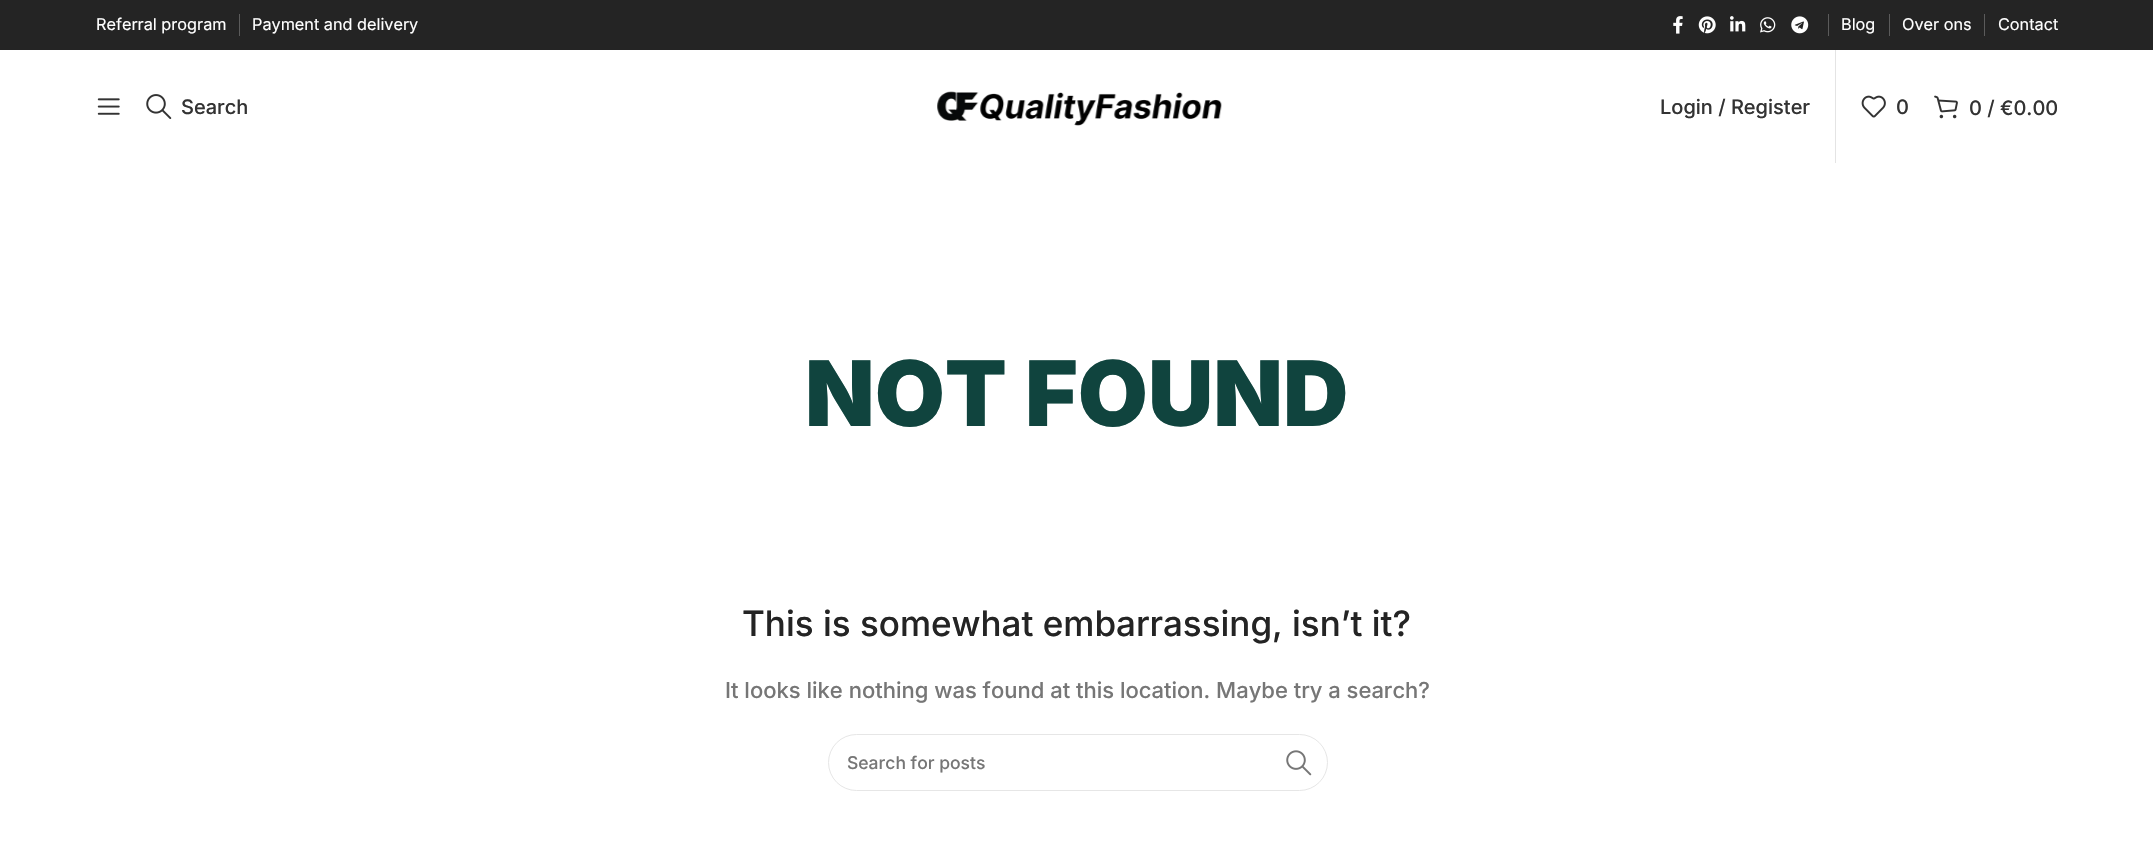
void draw(SkCanvas* c) {
SkPaint p;
p.setAntiAlias(true);
auto F=[&](const char* family, int weight, float size, bool italic = false){SkFontStyle style(weight, SkFontStyle::kNormal_Width,italic ? SkFontStyle::kItalic_Slant : SkFontStyle::kUpright_Slant);SkFont result(fontMgr->matchFamilyStyle(family, style), size);result.setSubpixel(true);return result;};
auto T=[&](const char* s, float x, float y, const SkFont& font){c->drawString(s, x, y, font, p);};
auto R=[&](float x, float y, float w, float h){c->drawRect(SkRect::MakeXYWH(x, y, w, h), p);};
auto I=[&](const char* path, float x, float y, float w, float h){auto image = SkImages::DeferredFromEncodedData(SkData::MakeFromFileName(path));c->drawImageRect(image, SkRect::MakeXYWH(x, y, w, h), SkSamplingOptions());};
c->clear(0xffffffff);
p.setColor(0xff242424);
R(0,0,2153,50);
auto f1 = F("Inter",400,16.25);
p.setColor(0xffffffff);
T("Referral program",96,30,f1);
p.setColor(0xff5b5b5b);
R(239,14,1,22);
p.setColor(0xffffffff);
T("Payment and delivery",252,30,f1);
I("1.png",1673,16,10,18);
I("2.png",1698,16,18,18);
I("3.png",1730,16,16,16);
I("4.png",1760,17,16,16);
I("5.png",1791,16,18,18);
p.setColor(0xff5b5b5b);
R(1828,14,1,22);
p.setColor(0xffffffff);
T("Blog",1841,30,f1);
p.setColor(0xff5b5b5b);
R(1889,14,1,22);
p.setColor(0xffffffff);
T("Over ons",1902,30,f1);
p.setColor(0xff5b5b5b);
R(1984,14,1,22);
p.setColor(0xffffffff);
T("Contact",1998,30,f1);
I("6.png",97,98,23,17);
I("7.png",146,94,26,25);
auto f2 = F("Inter",500,20);
p.setColor(0xff333333);
T("Search",181,114,f2);
I("8.png",937,91,285,35);
T("Login / Register",1660,114,f2);
p.setColor(0xffe4e4e4);
R(1835,50,1,113);
I("9.png",1861,95,25,23);
p.setColor(0xff333333);
T("0",1896,114,f2);
I("10.png",1934,95,24,24);
T("0 / €0.00",1969,115,f2);
auto f3 = F("Inter",900,90.5);
p.setColor(0xff10443e);
T("NOT FOUND",805,426,f3);
auto f4 = F("Inter",500,35);
p.setColor(0xff242424);
T("This is somewhat embarrassing, isn’t it?",742,636,f4);
auto f5 = F("Inter",500,22);
p.setColor(0xff767676);
T("It looks like nothing was found at this location. Maybe try a search?",725,698,f5);
p.setStroke(true);
p.setStrokeWidth(1);
p.setColor(0xffe6e6e6);
c->drawRoundRect(SkRect::MakeXYWH(828.5,734.5,499,56),28,28,p);
auto f6 = F("Inter",500,17.5);
p.setStroke(false);
p.setColor(0xff767676);
T("Search for posts",847,769,f6);
I("11.png",1286,750,26,26);
}
